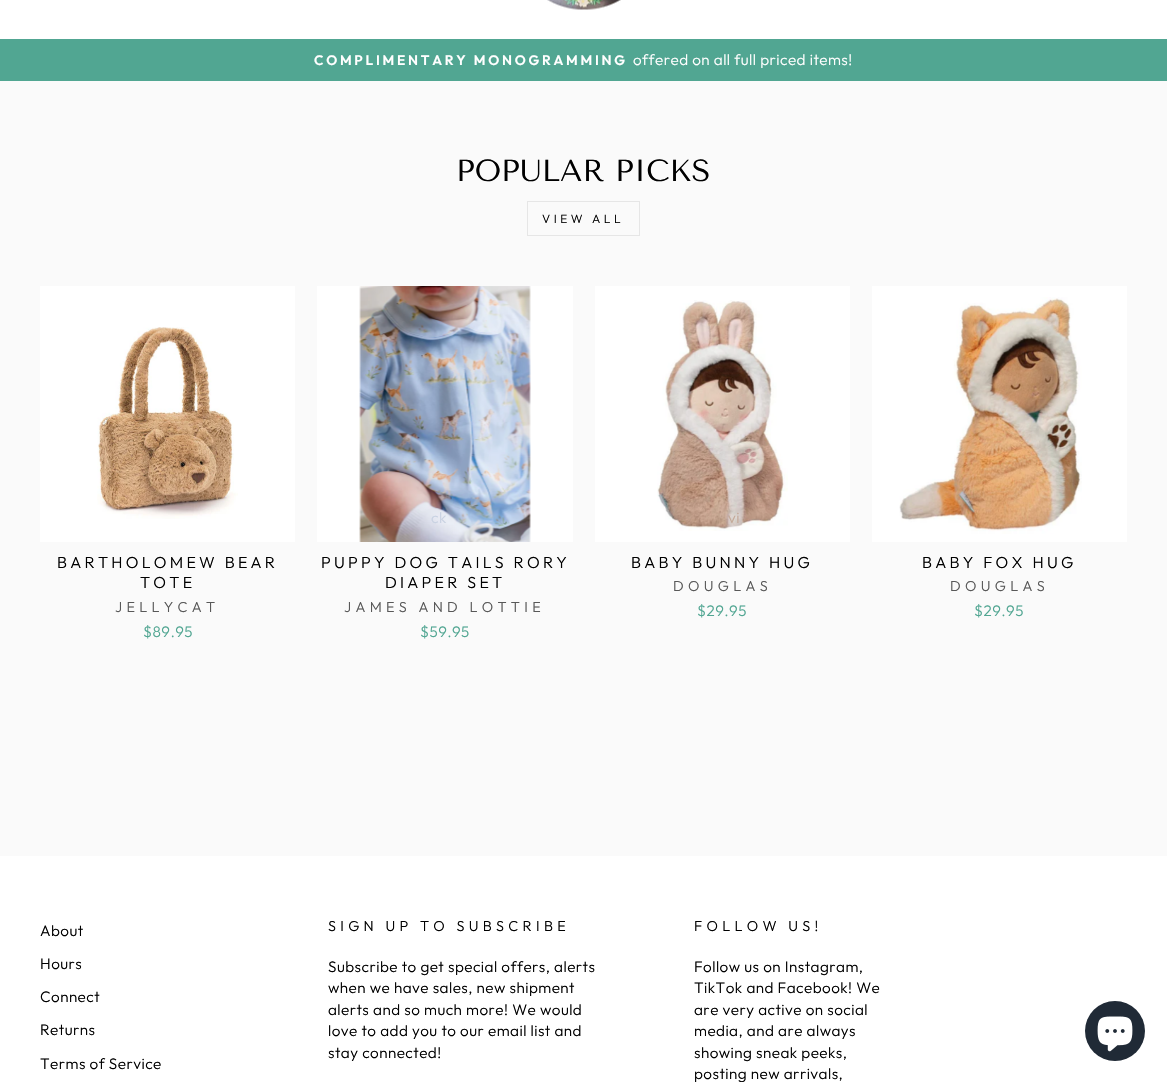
void draw(SkCanvas* c) {
SkPaint p;
p.setAntiAlias(true);
auto F=[&](const char* family, int weight, float size, bool italic = false){SkFontStyle style(weight, SkFontStyle::kNormal_Width,italic ? SkFontStyle::kItalic_Slant : SkFontStyle::kUpright_Slant);SkFont result(fontMgr->matchFamilyStyle(family, style), size);result.setSubpixel(true);return result;};
auto T=[&](const char* s, float x, float y, const SkFont& font){c->drawString(s, x, y, font, p);};
auto L=[&](const char* s, float x, float y, const SkFont& font, const SkPaint& ink, float letter, float word){std::vector<SkGlyphID> glyphs(font.countText(s, strlen(s), SkTextEncoding::kUTF8));std::vector<float> xs(glyphs.size());font.textToGlyphs(s, strlen(s), SkTextEncoding::kUTF8, glyphs);font.getXPos(glyphs, xs, x);float extra = 0;for (size_t i = 0; i < glyphs.size(); i++) {xs[i] += extra;extra += letter + word * (glyphs[i] == font.unicharToGlyph(' '));}c->drawTextBlob(SkTextBlob::MakeFromPosHGlyphs(glyphs, xs, y, font), 0, 0, ink);};
auto R=[&](float x, float y, float w, float h){c->drawRect(SkRect::MakeXYWH(x, y, w, h), p);};
auto I=[&](const char* path, float x, float y, float w, float h){auto image = SkImages::DeferredFromEncodedData(SkData::MakeFromFileName(path));c->drawImageRect(image, SkRect::MakeXYWH(x, y, w, h), SkSamplingOptions());};
c->clear(0xfffafafa);
p.setColor(0xffffffff);
R(0,0,1167,39);
I("1.png",547,0,74,10);
p.setColor(0xff51a692);
R(0,39,1167,42);
auto f1 = F("Outfit",600,13.75);
p.setColor(0xffffffff);
L("COMPLIMENTARY MONOGRAMMING",314,65,f1,p,2.75,0);
auto f2 = F("Outfit",300,15.25);
L("offered on all full priced items!",633,65,f2,p,.45,0);
auto f3 = F("Tenor Sans",400,30.5);
p.setColor(0xff000000);
T("POPULAR PICKS",456,181,f3);
p.setStroke(true);
p.setStrokeWidth(1);
p.setColor(0xffe6e6e6);
c->drawRect(SkRect::MakeXYWH(527.5,201.5,112,34),p);
auto f4 = F("Outfit",300,12);
p.setStroke(false);
p.setColor(0xff000000);
L("VIEW ALL",542,223,f4,p,3.5,0);
p.setColor(0xffffffff);
R(40,286,255,256);
I("2.png",97,327,141,192);
auto f5 = F("Outfit",300,16);
p.setColor(0xff000000);
L("BARTHOLOMEW BEAR",57,568,f5,p,3.25,0);
L("TOTE",140,588,f5,p,3.25,0);
auto f6 = F("Outfit",300,14.4);
p.setColor(0xff585858);
L("JELLYCAT",115,612,f6,p,4.3,0);
p.setColor(0xff51a692);
L("$89.95",143,637,f2,p,.45,0);
p.setColor(0xffffffff);
R(317,286,256,256);
I("3.png",359,286,172,256);
p.setColor(0xffc9d2e2);
L("ck",431,523,f2,p,.45,0);
p.setColor(0xff000000);
L("PUPPY DOG TAILS RORY",321,568,f5,p,3.25,0);
L("DIAPER SET",385,588,f5,p,3.25,0);
p.setColor(0xff585858);
L("JAMES AND LOTTIE",344,612,f6,p,4.3,0);
p.setColor(0xff51a692);
L("$59.95",420,637,f2,p,.45,0);
p.setColor(0xffffffff);
R(595,286,255,256);
I("4.png",657,300,131,231);
p.setColor(0xffc4a999);
L("vi",728,523,f2,p,.45,0);
p.setColor(0xff000000);
L("BABY BUNNY HUG",631,568,f5,p,3.25,0);
p.setColor(0xff585858);
L("DOUGLAS",673,591,f6,p,4.3,0);
p.setColor(0xff51a692);
L("$29.95",697,616,f2,p,.45,0);
p.setColor(0xffffffff);
R(872,286,255,256);
I("5.png",899,297,183,237);
p.setColor(0xff000000);
L("BABY FOX HUG",922,568,f5,p,3.25,0);
p.setColor(0xff585858);
L("DOUGLAS",950,591,f6,p,4.3,0);
p.setColor(0xff51a692);
L("$29.95",974,616,f2,p,.45,0);
p.setColor(0xffffffff);
R(0,856,1167,226);
p.setColor(0xff000000);
L("About",40,936,f2,p,.45,0);
L("Hours",40,969,f2,p,.45,0);
L("Connect",40,1002,f2,p,.45,0);
L("Returns",40,1035,f2,p,.45,0);
L("Terms of Service",40,1069,f2,p,.45,0);
L("SIGN UP TO SUBSCRIBE",328,931,f6,p,4.3,0);
L("Subscribe to get special offers, alerts",328,972,f2,p,.45,0);
L("when we have sales, new shipment",328,993,f2,p,.45,0);
L("alerts and so much more! We would",328,1015,f2,p,.45,0);
L("love to add you to our email list and",328,1036,f2,p,.45,0);
L("stay connected!",328,1058,f2,p,.45,0);
L("FOLLOW US!",694,931,f6,p,4.3,0);
L("Follow us on Instagram,",694,972,f2,p,.45,0);
L("TikTok and Facebook! We",694,993,f2,p,.45,0);
L("are very active on social",694,1015,f2,p,.45,0);
L("media, and are always",694,1036,f2,p,.45,0);
L("showing sneak peeks,",694,1058,f2,p,.45,0);
L("posting new arrivals,",694,1079,f2,p,.45,0);
p.setColor(0xff202a36);
c->drawCircle(1115,1031,30,p);
I("6.png",1097,1016,36,36);
}
